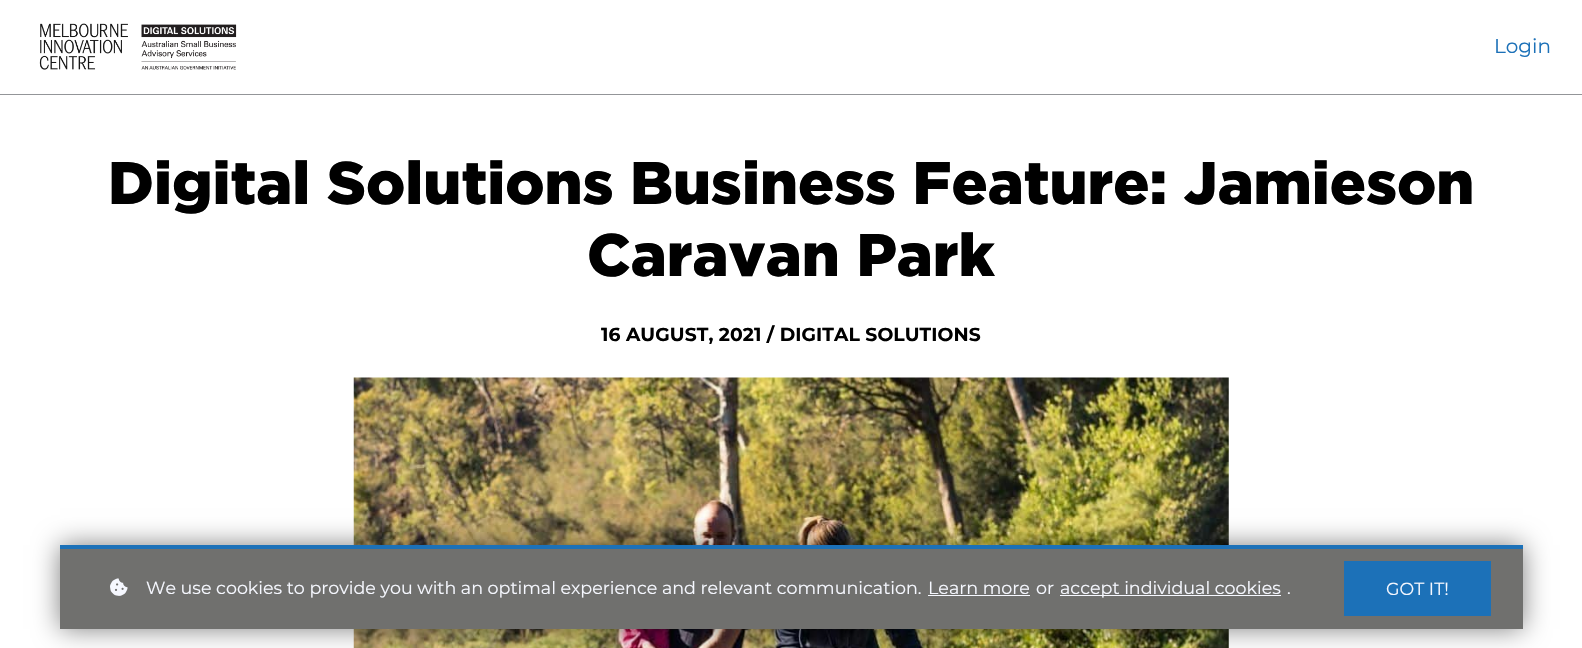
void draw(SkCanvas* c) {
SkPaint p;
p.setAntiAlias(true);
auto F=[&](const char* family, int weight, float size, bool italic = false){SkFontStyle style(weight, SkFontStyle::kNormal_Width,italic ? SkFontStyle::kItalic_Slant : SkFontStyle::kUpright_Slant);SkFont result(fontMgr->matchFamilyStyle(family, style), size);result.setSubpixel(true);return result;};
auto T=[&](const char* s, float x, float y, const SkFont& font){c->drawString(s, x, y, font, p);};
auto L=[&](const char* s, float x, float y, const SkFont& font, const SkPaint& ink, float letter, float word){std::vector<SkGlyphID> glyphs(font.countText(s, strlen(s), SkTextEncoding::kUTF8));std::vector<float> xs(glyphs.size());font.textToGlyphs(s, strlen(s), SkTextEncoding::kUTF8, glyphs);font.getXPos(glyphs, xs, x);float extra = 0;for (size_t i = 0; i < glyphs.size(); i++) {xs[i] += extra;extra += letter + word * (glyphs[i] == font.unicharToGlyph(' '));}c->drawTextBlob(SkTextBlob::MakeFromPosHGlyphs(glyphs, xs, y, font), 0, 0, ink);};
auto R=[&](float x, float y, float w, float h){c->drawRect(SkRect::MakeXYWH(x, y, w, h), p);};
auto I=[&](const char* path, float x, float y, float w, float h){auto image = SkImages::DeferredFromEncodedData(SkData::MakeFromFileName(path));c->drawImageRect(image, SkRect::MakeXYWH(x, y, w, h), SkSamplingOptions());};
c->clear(0xffffffff);
p.setColor(0xff939598);
R(0,94,1582,1);
I("1.png",39,23,198,47);
auto f1 = F("Montserrat",400,20);
p.setColor(0xff1c71b8);
T("Login",1494,53,f1);
auto f2 = F("Gotham",900,60);
p.setColor(0xff000000);
T("Digital Solutions Business Feature: Jamieson",108,204,f2);
T("Caravan Park",587,276,f2);
auto f3 = F("Montserrat",700,18.75);
L("16 AUGUST, 2021 / DIGITAL SOLUTIONS",601,341,f3,p,.1,0);
I("2.png",353,377,876,271);
p.setColor(0x80000000);
p.setMaskFilter(SkMaskFilter::MakeBlur(kNormal_SkBlurStyle, 12.5));
c->drawRect(SkRect::MakeXYWH(60,545,1463,84),p);
p.setMaskFilter(nullptr);
p.setColor(0xff70706e);
R(60,549,1463,80);
p.setColor(0xff1c71b8);
R(60,545,1463,4);
I("3.png",110,578,18,18);
auto f4 = F("Montserrat",400,17.5);
p.setColor(0xfff6f8ff);
T("We use cookies to provide you with an optimal experience and relevant communication.",146,594,f4);
T("Learn more",928,594,f4);
R(928,595,102,1);
T("or",1036,594,f4);
R(1060,595,221,1);
T("accept individual cookies",1060,594,f4);
T(".",1287,594,f4);
p.setColor(0xff1c71b8);
R(1344,561,147,55);
p.setColor(0xfff6f8ff);
T("GOT IT!",1386,595,f4);
}
